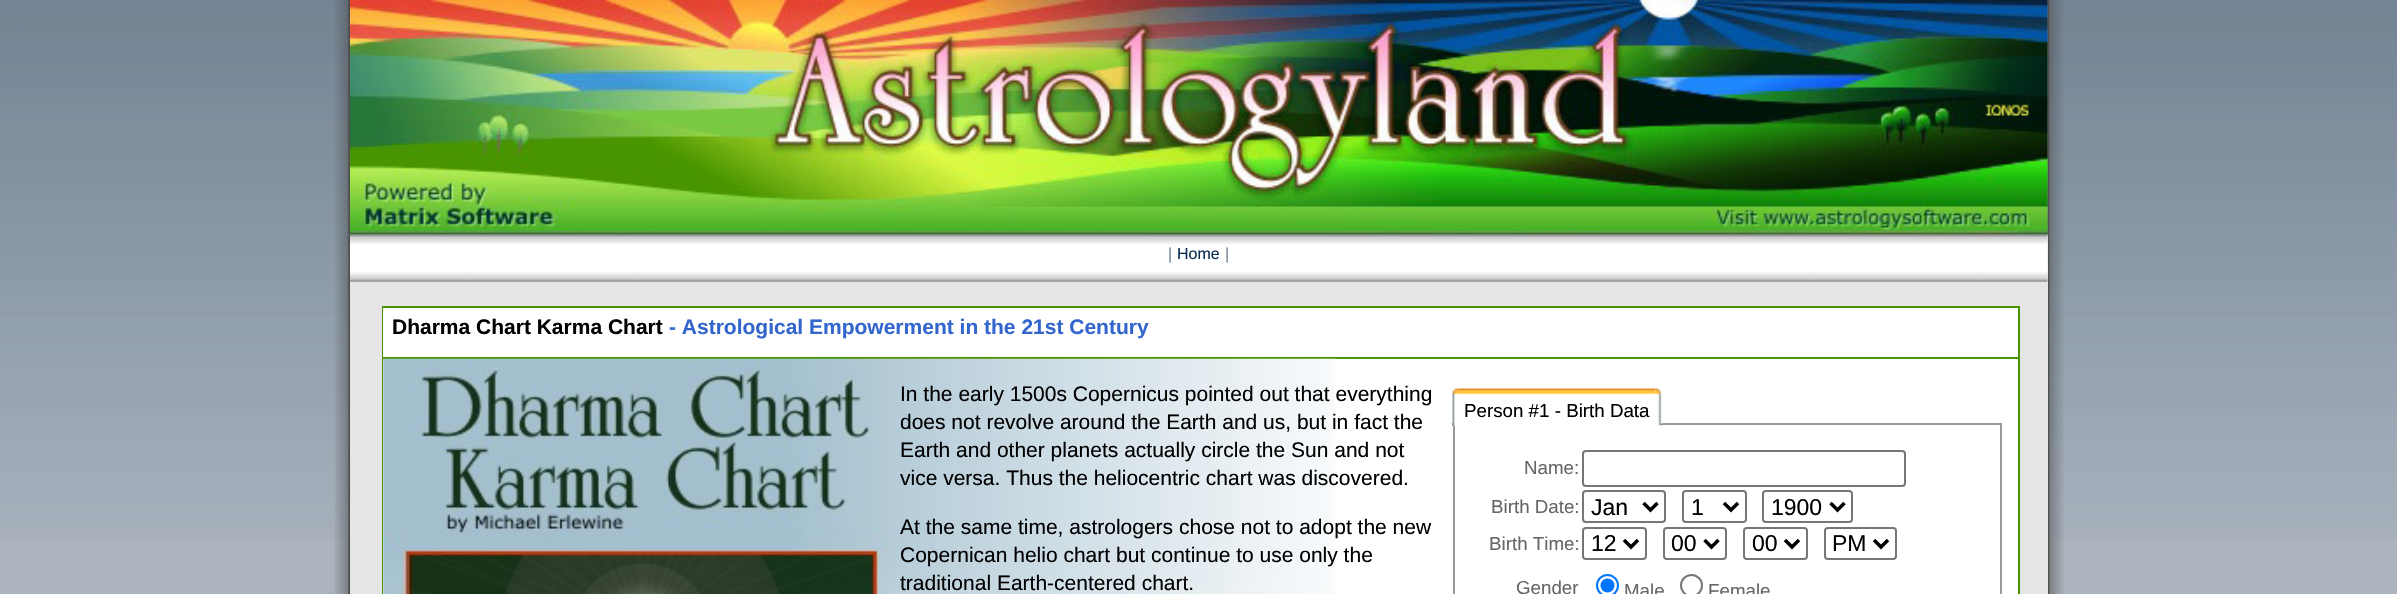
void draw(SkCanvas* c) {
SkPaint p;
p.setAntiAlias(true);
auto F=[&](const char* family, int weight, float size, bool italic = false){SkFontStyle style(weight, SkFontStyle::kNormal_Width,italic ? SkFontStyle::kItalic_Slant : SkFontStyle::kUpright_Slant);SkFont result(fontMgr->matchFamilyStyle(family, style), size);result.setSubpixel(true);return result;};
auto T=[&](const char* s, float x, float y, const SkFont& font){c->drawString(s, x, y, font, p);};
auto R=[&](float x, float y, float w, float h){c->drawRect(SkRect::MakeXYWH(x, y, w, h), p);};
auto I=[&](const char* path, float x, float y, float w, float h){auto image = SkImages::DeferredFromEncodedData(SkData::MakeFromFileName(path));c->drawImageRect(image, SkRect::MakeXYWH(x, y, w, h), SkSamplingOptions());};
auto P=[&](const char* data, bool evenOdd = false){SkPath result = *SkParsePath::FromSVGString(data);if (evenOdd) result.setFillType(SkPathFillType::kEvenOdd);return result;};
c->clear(0xffabb3bd);
I("1.png",0,0,2397,539);
I("2.png",334,0,16,235);
I("4.png",2047,0,17,235);
I("11.png",2047,234,17,360);
I("3.png",350,0,1698,235);
I("5.png",334,234,16,360);
p.setColor(0xffe5e5e5);
R(350,235,1698,359);
I("6.png",350,234,1698,48);
auto f1 = F("Liberation Sans",400,16);
p.setColor(0xff758594);
T("|",1168,259,f1);
p.setColor(0xff072c52);
T("Home",1177,259,f1);
p.setColor(0xff758594);
T("|",1225,259,f1);
p.setStroke(true);
p.setStrokeWidth(2);
p.setColor(0xff499500);
c->drawRect(SkRect::MakeXYWH(383,307,1636,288),p);
p.setStroke(false);
p.setColor(0xffffffff);
R(383,308,1635,49);
p.setColor(0xff499500);
R(383,357,1635,2);
auto f2 = F("Liberation Sans",700,21);
p.setColor(0xff000000);
T("Dharma Chart Karma Chart",392,334,f2);
p.setColor(0xff3366cc);
T("- Astrological Empowerment in the 21st Century",669,334,f2);
p.setColor(0xffffffff);
R(383,359,1635,235);
I("7.png",383,358,953,236);
auto f3 = F("Liberation Sans",400,21);
p.setColor(0xff000000);
T("In the early 1500s Copernicus pointed out that everything",900,401,f3);
T("does not revolve around the Earth and us, but in fact the",900,429,f3);
T("Earth and other planets actually circle the Sun and not",900,457,f3);
T("vice versa. Thus the heliocentric chart was discovered.",900,485,f3);
T("At the same time, astrologers chose not to adopt the new",900,534,f3);
T("Copernican helio chart but continue to use only the",900,562,f3);
T("traditional Earth-centered chart.",900,590,f3);
p.setColor(0xff919b9c);
R(1452,423,550,3);
p.setColor(0xffffffff);
R(1455,425,545,1);
I("8.png",1655,388,8,38);
p.setColor(0xff999999);
R(1453,425,2,169);
I("9.png",1452,388,6,38);
I("10.png",1457,388,199,37);
auto f4 = F("Liberation Sans",400,18.75);
p.setColor(0xff000000);
T("Person #1 - Birth Data",1464,417,f4);
p.setColor(0xff999999);
R(2000,425,2,169);
p.setColor(0xff666666);
T("Name:",1524,474,f4);
p.setStroke(true);
p.setColor(0xff767676);
c->drawRoundRect(SkRect::MakeXYWH(1583,451,322,35),3,3,p);
p.setStroke(false);
p.setColor(0xff666666);
T("Birth Date:",1491,513,f4);
p.setStroke(true);
p.setColor(0xff767676);
c->drawRoundRect(SkRect::MakeXYWH(1583,491,82,31),3,3,p);
p.setStrokeWidth(3.5);
p.setColor(0xff000000);
c->drawPath(P("M1643.5 503l7 7l7-7"),p);
auto f5 = F("Liberation Sans",400,23);
p.setStroke(false);
T("Jan",1591,515,f5);
p.setStroke(true);
p.setStrokeWidth(2);
p.setColor(0xff767676);
c->drawRoundRect(SkRect::MakeXYWH(1683,491,63,31),3,3,p);
p.setStrokeWidth(3.5);
p.setColor(0xff000000);
c->drawPath(P("M1724 503l7 7l7-7"),p);
p.setStroke(false);
T("1",1691,515,f5);
p.setStroke(true);
p.setStrokeWidth(2);
p.setColor(0xff767676);
c->drawRoundRect(SkRect::MakeXYWH(1763,491,89,31),3,3,p);
p.setStrokeWidth(3.5);
p.setColor(0xff000000);
c->drawPath(P("M1830.5 503l7 7l7-7"),p);
p.setStroke(false);
T("1900",1771,515,f5);
p.setColor(0xff666666);
T("Birth Time:",1489,550,f4);
p.setStroke(true);
p.setStrokeWidth(2);
p.setColor(0xff767676);
c->drawRoundRect(SkRect::MakeXYWH(1583,528,63,31),3,3,p);
p.setStrokeWidth(3.5);
p.setColor(0xff000000);
c->drawPath(P("M1624 540l7 7l7-7"),p);
p.setStroke(false);
T("12",1591,551,f5);
p.setStroke(true);
p.setStrokeWidth(2);
p.setColor(0xff767676);
c->drawRoundRect(SkRect::MakeXYWH(1664,528,62,31),3,3,p);
p.setStrokeWidth(3.5);
p.setColor(0xff000000);
c->drawPath(P("M1704.5 540l7 7l7-7"),p);
p.setStroke(false);
T("00",1671,551,f5);
p.setStroke(true);
p.setStrokeWidth(2);
p.setColor(0xff767676);
c->drawRoundRect(SkRect::MakeXYWH(1744,528,63,31),3,3,p);
p.setStrokeWidth(3.5);
p.setColor(0xff000000);
c->drawPath(P("M1785 540l7 7l7-7"),p);
p.setStroke(false);
T("00",1752,551,f5);
p.setStroke(true);
p.setStrokeWidth(2);
p.setColor(0xff767676);
c->drawRoundRect(SkRect::MakeXYWH(1825,528,71,31),3,3,p);
p.setStrokeWidth(3.5);
p.setColor(0xff000000);
c->drawPath(P("M1874 540l7 7l7-7"),p);
p.setStroke(false);
T("PM",1832,551,f5);
p.setColor(0xff666666);
T("Gender",1516,594,f4);
p.setStroke(true);
p.setStrokeWidth(2);
p.setColor(0xff0075ff);
c->drawCircle(1607.5,585.5,10.5,p);
p.setStroke(false);
c->drawCircle(1607.5,585.5,7,p);
p.setColor(0xff666666);
T("Male",1624,597,f4);
p.setStroke(true);
p.setColor(0xff767676);
c->drawCircle(1691.5,585.5,10.5,p);
p.setStroke(false);
p.setColor(0xff666666);
T("Female",1708,597,f4);
}
